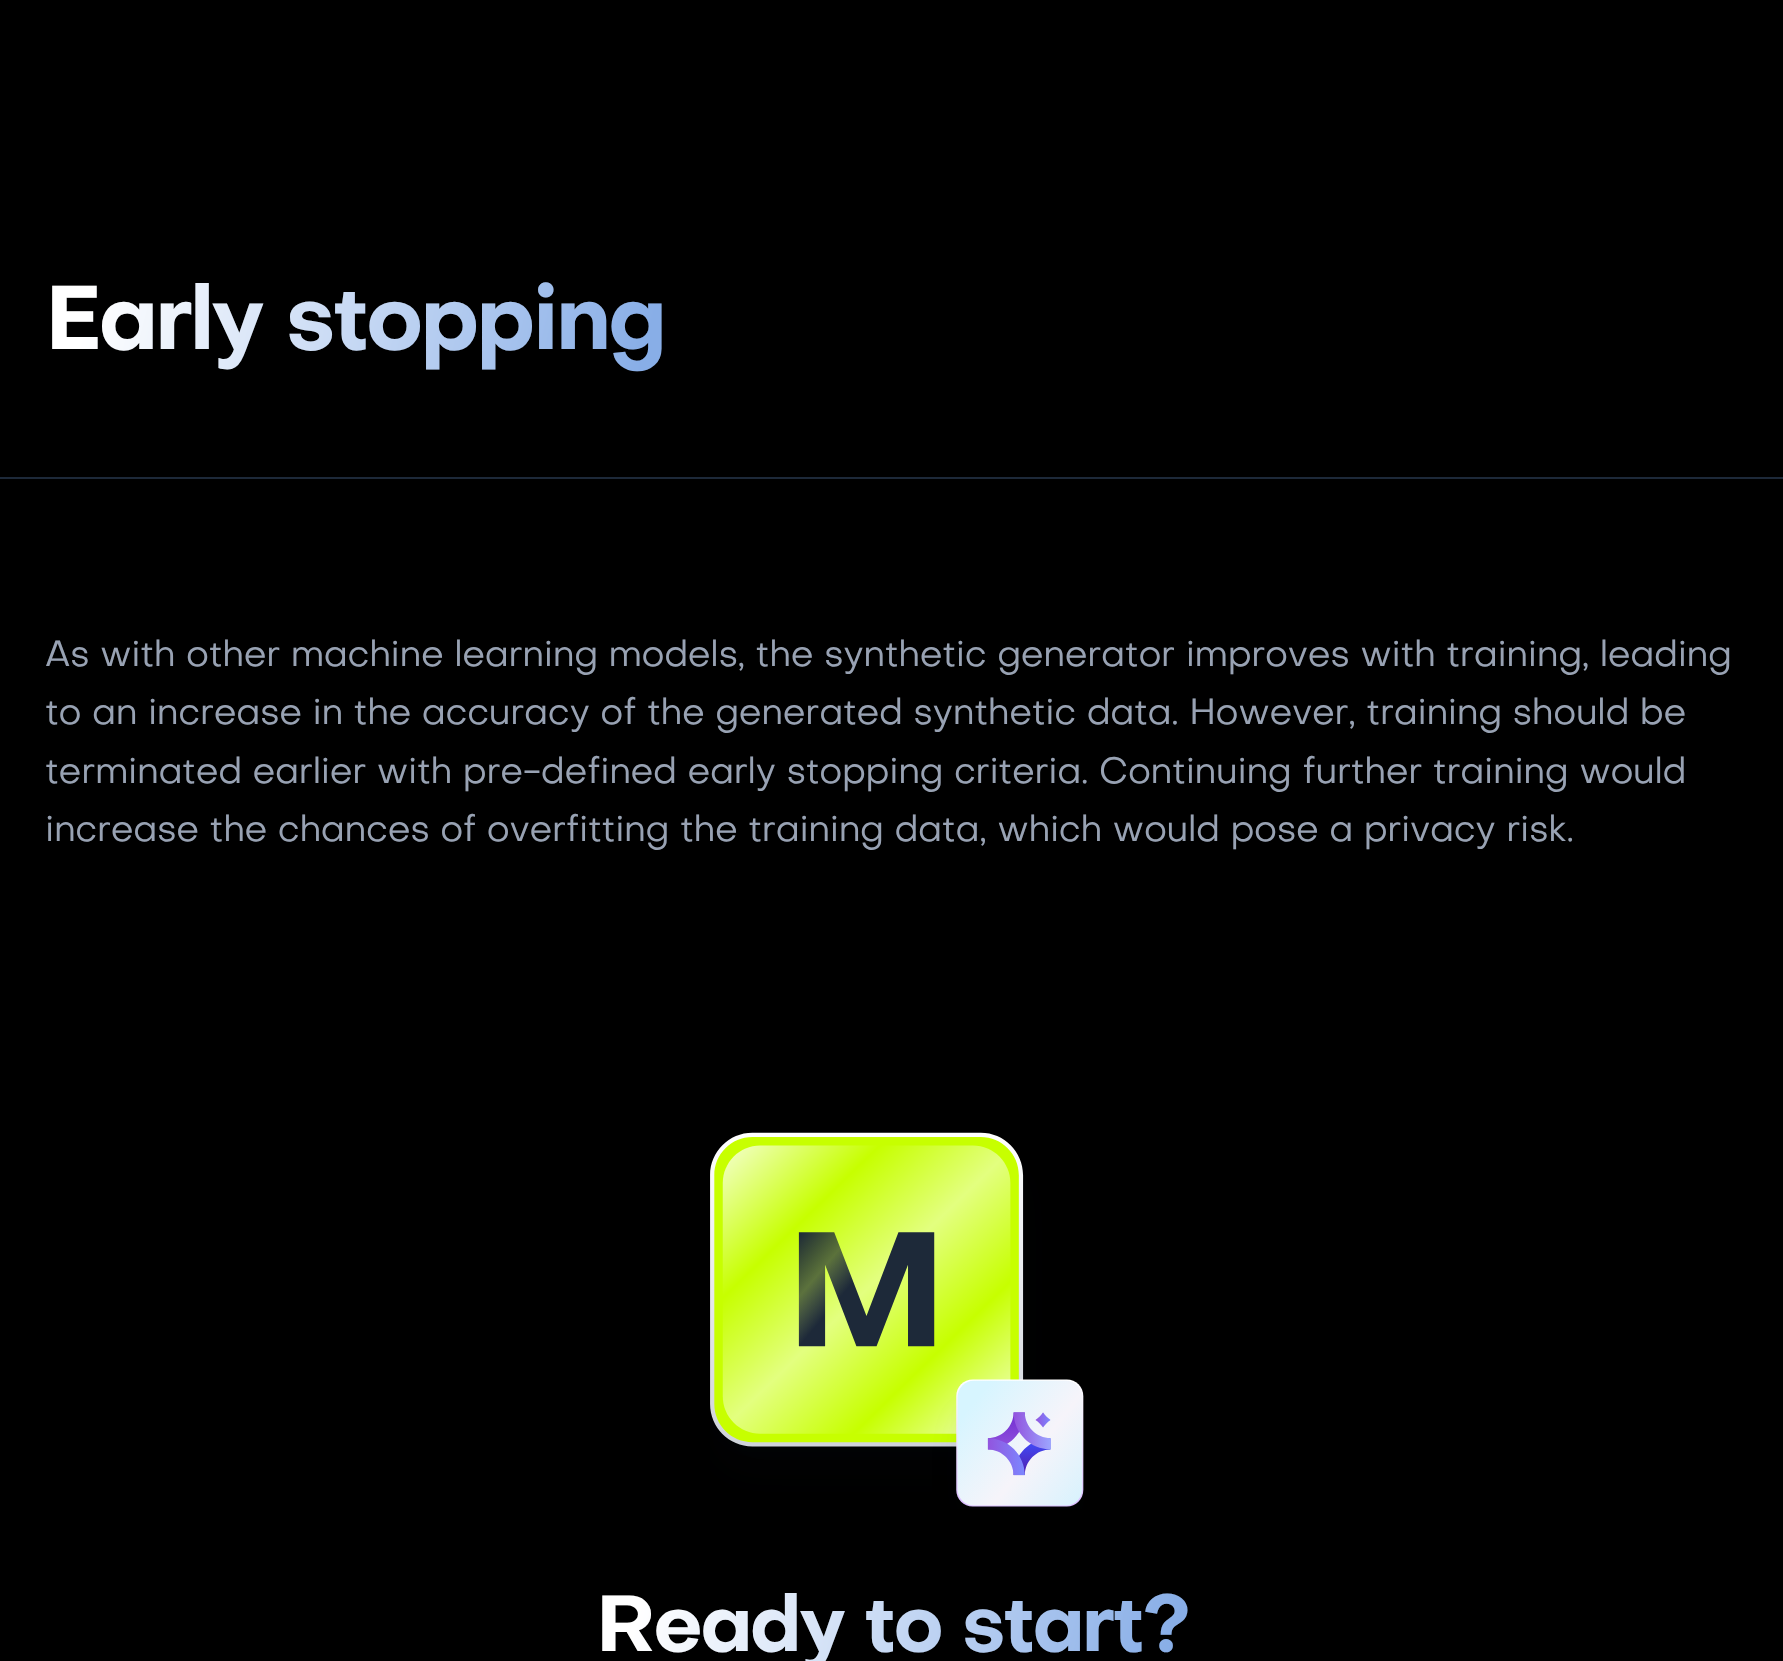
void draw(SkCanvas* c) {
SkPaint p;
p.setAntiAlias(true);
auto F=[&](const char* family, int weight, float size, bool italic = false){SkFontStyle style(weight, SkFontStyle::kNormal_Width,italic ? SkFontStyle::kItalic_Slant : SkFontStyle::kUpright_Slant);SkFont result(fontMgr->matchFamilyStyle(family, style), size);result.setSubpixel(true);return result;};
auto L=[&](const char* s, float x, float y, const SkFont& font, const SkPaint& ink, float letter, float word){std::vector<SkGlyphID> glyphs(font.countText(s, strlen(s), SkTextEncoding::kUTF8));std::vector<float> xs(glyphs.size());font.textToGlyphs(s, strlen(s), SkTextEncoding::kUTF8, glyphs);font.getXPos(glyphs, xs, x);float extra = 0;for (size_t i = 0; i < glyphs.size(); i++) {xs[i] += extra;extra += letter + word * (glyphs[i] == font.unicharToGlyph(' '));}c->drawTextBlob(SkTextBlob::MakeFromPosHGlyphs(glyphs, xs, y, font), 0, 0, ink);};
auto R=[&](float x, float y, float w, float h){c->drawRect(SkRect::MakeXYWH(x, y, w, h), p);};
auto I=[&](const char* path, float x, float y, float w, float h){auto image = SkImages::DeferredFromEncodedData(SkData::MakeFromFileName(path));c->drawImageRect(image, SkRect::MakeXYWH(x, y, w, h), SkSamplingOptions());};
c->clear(0xff000000);
p.setColor(0xff1d2939);
R(0,477,1783,2);
auto f1 = F("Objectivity",700,89);
{
const SkColor colors[] = {0xff88aee7,0xffffffff};
const float stops[] = {.04,.92};
const SkPoint ends[] = {{658,405}, {50,252}};
p.setShader(SkGradientShader::MakeLinear(ends, colors, stops, 2, SkTileMode::kClamp));
p.setAlpha(255);
}
L("Early stopping",45,349,f1,p,-3.5,0);
auto f2 = F("Objectivity",400,36);
p.setShader(nullptr);
p.setColor(0xff98a2b3);
L("As with other machine learning models, the synthetic generator improves with training, leading",45,666,f2,p,-.35,0);
L("to an increase in the accuracy of the generated synthetic data. However, training should be",45,724,f2,p,-.35,0);
L("terminated earlier with pre-defined early stopping criteria. Continuing further training would",45,783,f2,p,-.35,0);
L("increase the chances of overfitting the training data, which would pose a privacy risk.",45,841,f2,p,-.35,0);
I("1.png",710,1132,374,377);
auto f3 = F("Objectivity",700,78);
{
const SkColor colors[] = {0xff88aee7,0xffffffff};
const float stops[] = {.04,.92};
const SkPoint ends[] = {{1182,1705}, {602,1559}};
p.setShader(SkGradientShader::MakeLinear(ends, colors, stops, 2, SkTileMode::kClamp));
p.setAlpha(255);
}
L("Ready to start?",596,1651,f3,p,-3.1,0);
}
